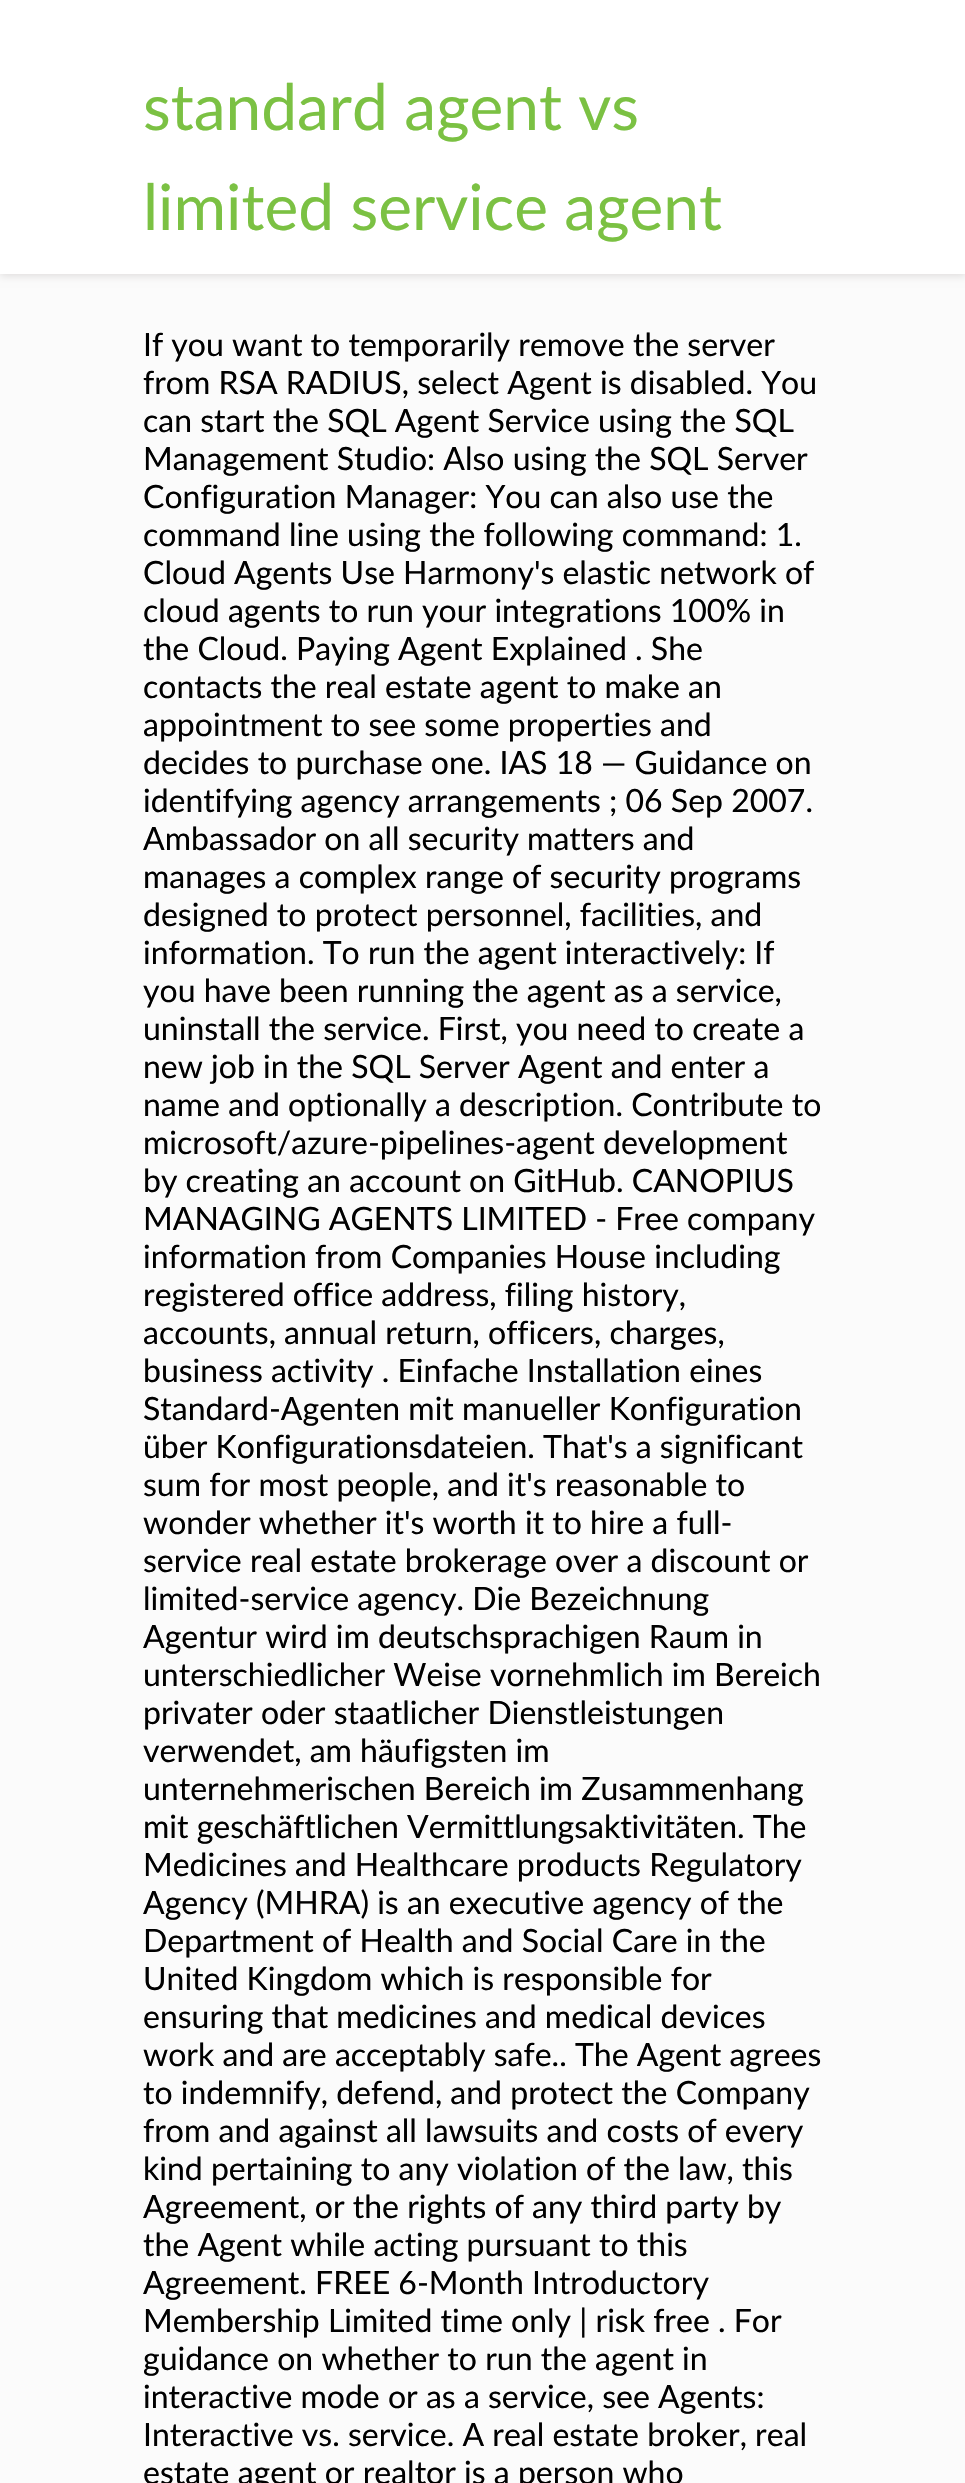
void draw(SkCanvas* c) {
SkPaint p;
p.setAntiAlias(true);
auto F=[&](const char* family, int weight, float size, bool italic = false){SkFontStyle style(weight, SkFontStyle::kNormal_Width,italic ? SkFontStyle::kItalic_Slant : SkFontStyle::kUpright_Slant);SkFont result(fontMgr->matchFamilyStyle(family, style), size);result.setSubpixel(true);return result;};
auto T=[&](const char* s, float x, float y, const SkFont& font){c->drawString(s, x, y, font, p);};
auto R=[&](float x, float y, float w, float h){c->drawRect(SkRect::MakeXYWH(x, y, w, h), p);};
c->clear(0xfffbfbfb);
p.setColor(0xffdfdddd);
p.setMaskFilter(SkMaskFilter::MakeBlur(kNormal_SkBlurStyle, 4));
c->drawRect(SkRect::MakeXYWH(0,2,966,274),p);
p.setMaskFilter(nullptr);
p.setColor(0xffffffff);
R(0,0,965,274);
auto f1 = F("Lato",400,64);
p.setColor(0xff7bc143);
T("standard agent vs",143,130,f1);
T("limited service agent",143,230,f1);
auto f2 = F("Lato",400,32);
p.setColor(0xff000000);
T("If you want to temporarily remove the server",143,356,f2);
T("from RSA RADIUS, select Agent is disabled. You",143,394,f2);
T("can start the SQL Agent Service using the SQL",143,432,f2);
T("Management Studio: Also using the SQL Server",143,470,f2);
T("Configuration Manager: You can also use the",143,508,f2);
T("command line using the following command: 1.",143,546,f2);
T("Cloud Agents Use Harmony's elastic network of",143,584,f2);
T("cloud agents to run your integrations 100% in",143,622,f2);
T("the Cloud. Paying Agent Explained . She",143,660,f2);
T("contacts the real estate agent to make an",143,698,f2);
T("appointment to see some properties and",143,736,f2);
T("decides to purchase one. IAS 18 — Guidance on",143,774,f2);
T("identifying agency arrangements ; 06 Sep 2007.",143,812,f2);
T("Ambassador on all security matters and",143,850,f2);
T("manages a complex range of security programs",143,888,f2);
T("designed to protect personnel, facilities, and",143,926,f2);
T("information. To run the agent interactively: If",143,964,f2);
T("you have been running the agent as a service,",143,1002,f2);
T("uninstall the service. First, you need to create a",143,1040,f2);
T("new job in the SQL Server Agent and enter a",143,1078,f2);
T("name and optionally a description. Contribute to",143,1116,f2);
T("microsoft/azure-pipelines-agent development",143,1154,f2);
T("by creating an account on GitHub. CANOPIUS",143,1192,f2);
T("MANAGING AGENTS LIMITED - Free company",143,1230,f2);
T("information from Companies House including",143,1268,f2);
T("registered office address, filing history,",143,1306,f2);
T("accounts, annual return, officers, charges,",143,1344,f2);
T("business activity . Einfache Installation eines",143,1382,f2);
T("Standard-Agenten mit manueller Konfiguration",143,1420,f2);
T("über Konfigurationsdateien. That's a significant",143,1458,f2);
T("sum for most people, and it's reasonable to",143,1496,f2);
T("wonder whether it's worth it to hire a full-",143,1534,f2);
T("service real estate brokerage over a discount or",143,1572,f2);
T("limited-service agency. Die Bezeichnung",143,1610,f2);
T("Agentur wird im deutschsprachigen Raum in",143,1648,f2);
T("unterschiedlicher Weise vornehmlich im Bereich",143,1686,f2);
T("privater oder staatlicher Dienstleistungen",143,1724,f2);
T("verwendet, am häufigsten im",143,1762,f2);
T("unternehmerischen Bereich im Zusammenhang",143,1800,f2);
T("mit geschäftlichen Vermittlungsaktivitäten. The",143,1838,f2);
T("Medicines and Healthcare products Regulatory",143,1876,f2);
T("Agency (MHRA) is an executive agency of the",143,1914,f2);
T("Department of Health and Social Care in the",143,1952,f2);
T("United Kingdom which is responsible for",143,1990,f2);
T("ensuring that medicines and medical devices",143,2028,f2);
T("work and are acceptably safe.. The Agent agrees",143,2066,f2);
T("to indemnify, defend, and protect the Company",143,2104,f2);
T("from and against all lawsuits and costs of every",143,2142,f2);
T("kind pertaining to any violation of the law, this",143,2180,f2);
T("Agreement, or the rights of any third party by",143,2218,f2);
T("the Agent while acting pursuant to this",143,2256,f2);
T("Agreement. FREE 6-Month Introductory",143,2294,f2);
T("Membership Limited time only | risk free . For",143,2332,f2);
T("guidance on whether to run the agent in",143,2370,f2);
T("interactive mode or as a service, see Agents:",143,2408,f2);
T("Interactive vs. service. A real estate broker, real",143,2446,f2);
T("estate agent or realtor is a person who",143,2484,f2);
}
